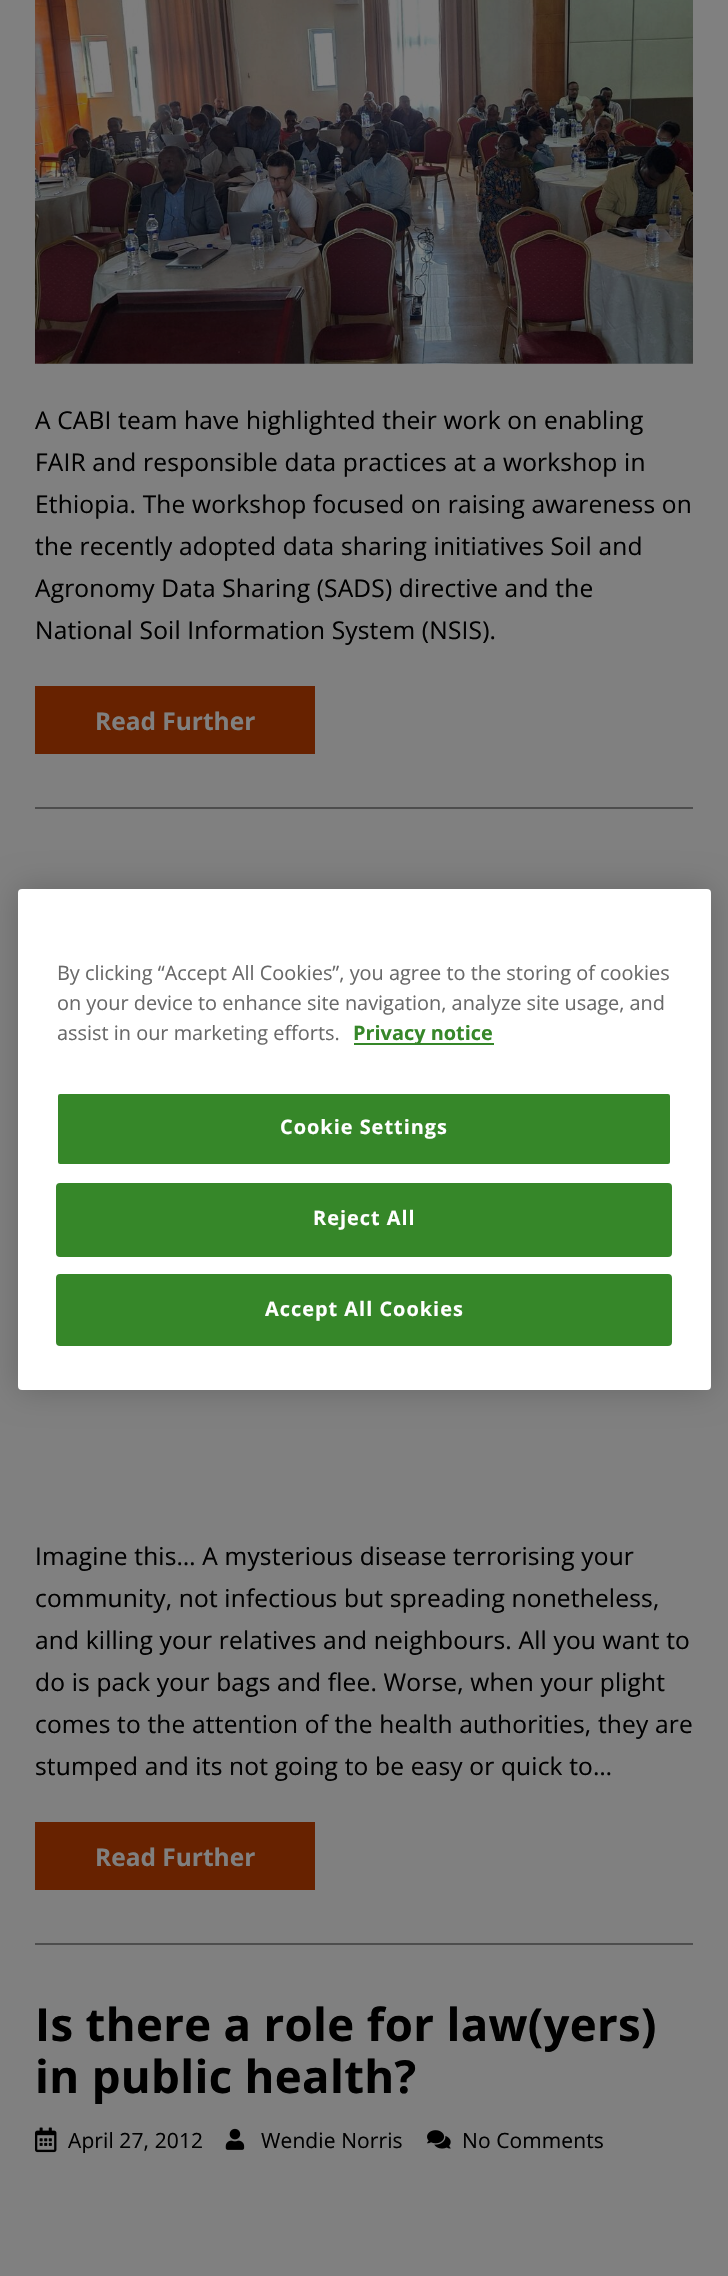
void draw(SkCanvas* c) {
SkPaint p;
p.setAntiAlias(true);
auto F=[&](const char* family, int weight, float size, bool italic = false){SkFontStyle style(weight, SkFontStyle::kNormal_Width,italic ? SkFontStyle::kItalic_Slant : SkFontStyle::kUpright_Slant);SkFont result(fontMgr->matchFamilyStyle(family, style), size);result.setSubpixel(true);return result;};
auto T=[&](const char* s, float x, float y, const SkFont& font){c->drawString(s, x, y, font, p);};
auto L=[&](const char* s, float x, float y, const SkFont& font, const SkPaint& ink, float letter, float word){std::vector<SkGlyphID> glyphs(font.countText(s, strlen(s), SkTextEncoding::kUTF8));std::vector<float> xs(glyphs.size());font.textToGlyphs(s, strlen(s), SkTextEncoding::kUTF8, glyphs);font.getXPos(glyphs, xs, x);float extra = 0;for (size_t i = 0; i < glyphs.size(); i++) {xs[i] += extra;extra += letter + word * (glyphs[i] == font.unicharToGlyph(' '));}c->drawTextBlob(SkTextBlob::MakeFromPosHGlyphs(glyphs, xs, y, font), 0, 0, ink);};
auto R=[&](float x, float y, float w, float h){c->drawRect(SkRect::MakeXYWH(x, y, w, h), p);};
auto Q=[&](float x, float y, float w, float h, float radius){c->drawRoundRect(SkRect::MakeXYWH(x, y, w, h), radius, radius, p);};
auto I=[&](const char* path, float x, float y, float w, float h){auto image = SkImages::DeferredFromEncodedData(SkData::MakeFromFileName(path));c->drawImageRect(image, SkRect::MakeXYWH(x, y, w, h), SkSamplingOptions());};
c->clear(0xff808080);
p.setColor(0xff4d4d4d);
R(35,807,658,2);
I("1.png",35,0,658,364);
auto f1 = F("Open Sans",400,24.5);
p.setColor(0xff000000);
L("A CABI team have highlighted their work on enabling",35,429,f1,p,.18,0);
L("FAIR and responsible data practices at a workshop in",35,471,f1,p,.18,0);
L("Ethiopia. The workshop focused on raising awareness on",35,513,f1,p,.18,0);
L("the recently adopted data sharing initiatives Soil and",35,555,f1,p,.18,0);
L("Agronomy Data Sharing (SADS) directive and the",35,597,f1,p,.18,0);
L("National Soil Information System (NSIS).",35,639,f1,p,.18,0);
p.setColor(0xff672200);
R(35,686,280,68);
auto f2 = F("Open Sans",700,24.5);
p.setColor(0xff808080);
T("Read Further",95,730,f2);
p.setColor(0xff4d4d4d);
R(35,1943,658,2);
p.setColor(0xff000000);
L("Imagine this… A mysterious disease terrorising your",35,1565,f1,p,.18,0);
L("community, not infectious but spreading nonetheless,",35,1607,f1,p,.18,0);
L("and killing your relatives and neighbours. All you want to",35,1649,f1,p,.18,0);
L("do is pack your bags and flee. Worse, when your plight",35,1691,f1,p,.18,0);
L("comes to the attention of the health authorities, they are",35,1733,f1,p,.18,0);
L("stumped and its not going to be easy or quick to…",35,1775,f1,p,.18,0);
p.setColor(0xff672200);
R(35,1822,280,68);
p.setColor(0xff808080);
T("Read Further",95,1866,f2);
auto f3 = F("Open Sans",700,45.5);
p.setColor(0xff000000);
L("Is there a role for law(yers)",35,2041,f3,p,.35,0);
L("in public health?",35,2093,f3,p,.35,0);
I("2.png",35,2127,22,26);
auto f4 = F("Open Sans",400,21);
L("April 27, 2012",68,2148,f4,p,.1,0);
I("3.png",225,2128,20,22);
L("Wendie Norris",261,2148,f4,p,.1,0);
I("4.png",427,2130,24,19);
L("No Comments",462,2148,f4,p,.1,0);
p.setColor(0x33000000);
p.setMaskFilter(SkMaskFilter::MakeBlur(kNormal_SkBlurStyle, 16));
c->drawRoundRect(SkRect::MakeXYWH(18,889,693,501),4,4,p);
p.setMaskFilter(nullptr);
p.setColor(0xffffffff);
Q(18,889,693,501,4);
auto f5 = F("Open Sans",400,19.9);
p.setColor(0xff696969);
T("By clicking “Accept All Cookies”, you agree to the storing of cookies",57,980,f5);
T("on your device to enhance site navigation, analyze site usage, and",57,1010,f5);
T("assist in our marketing efforts.",57,1040,f5);
p.setColor(0xff368729);
R(354,1043,140,2);
auto f6 = F("Open Sans",700,19.9);
T("Privacy notice",353,1040,f6);
c->drawRoundRect(SkRect::MakeXYWH(57,1093,614,72),3,3,p);
p.setStroke(true);
p.setStrokeWidth(2);
p.setColor(0xffffffff);
c->drawRoundRect(SkRect::MakeXYWH(57,1093,614,72),3,3,p);
p.setStroke(false);
L("Cookie Settings",280,1134,f6,p,1,0);
p.setColor(0xff368729);
c->drawRoundRect(SkRect::MakeXYWH(57,1184,614,72),3,3,p);
p.setStroke(true);
c->drawRoundRect(SkRect::MakeXYWH(57,1184,614,72),3,3,p);
p.setStroke(false);
p.setColor(0xffffffff);
L("Reject All",313,1225,f6,p,1,0);
p.setColor(0xff368729);
c->drawRoundRect(SkRect::MakeXYWH(57,1275,614,70),3,3,p);
p.setStroke(true);
c->drawRoundRect(SkRect::MakeXYWH(57,1275,614,70),3,3,p);
p.setStroke(false);
p.setColor(0xffffffff);
L("Accept All Cookies",265,1316,f6,p,1,0);
}
